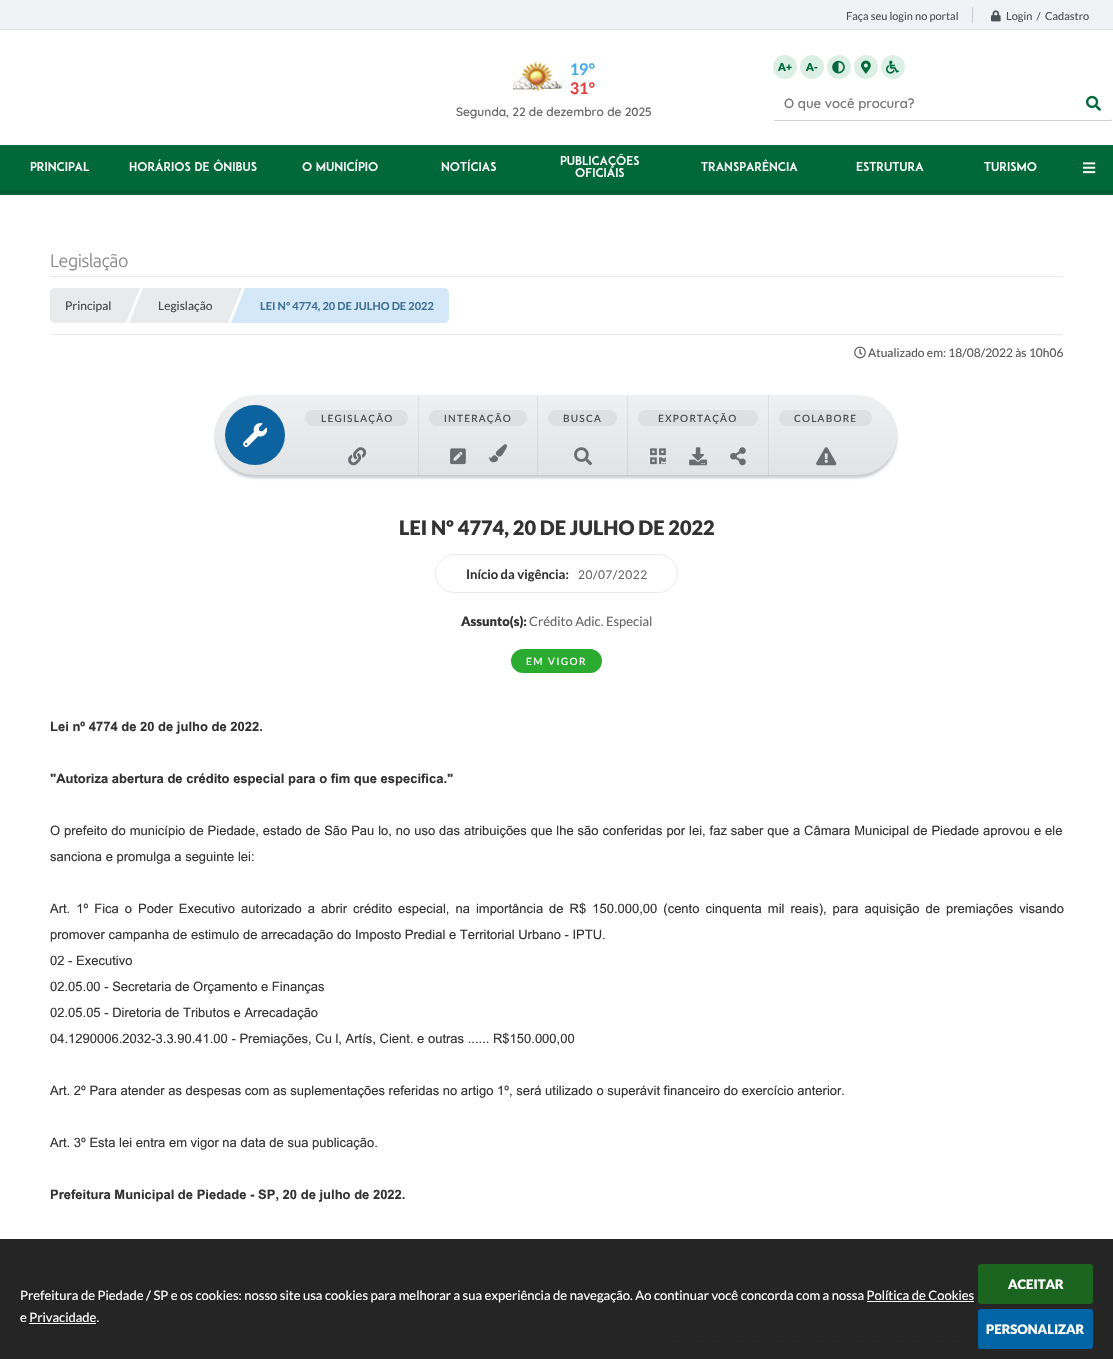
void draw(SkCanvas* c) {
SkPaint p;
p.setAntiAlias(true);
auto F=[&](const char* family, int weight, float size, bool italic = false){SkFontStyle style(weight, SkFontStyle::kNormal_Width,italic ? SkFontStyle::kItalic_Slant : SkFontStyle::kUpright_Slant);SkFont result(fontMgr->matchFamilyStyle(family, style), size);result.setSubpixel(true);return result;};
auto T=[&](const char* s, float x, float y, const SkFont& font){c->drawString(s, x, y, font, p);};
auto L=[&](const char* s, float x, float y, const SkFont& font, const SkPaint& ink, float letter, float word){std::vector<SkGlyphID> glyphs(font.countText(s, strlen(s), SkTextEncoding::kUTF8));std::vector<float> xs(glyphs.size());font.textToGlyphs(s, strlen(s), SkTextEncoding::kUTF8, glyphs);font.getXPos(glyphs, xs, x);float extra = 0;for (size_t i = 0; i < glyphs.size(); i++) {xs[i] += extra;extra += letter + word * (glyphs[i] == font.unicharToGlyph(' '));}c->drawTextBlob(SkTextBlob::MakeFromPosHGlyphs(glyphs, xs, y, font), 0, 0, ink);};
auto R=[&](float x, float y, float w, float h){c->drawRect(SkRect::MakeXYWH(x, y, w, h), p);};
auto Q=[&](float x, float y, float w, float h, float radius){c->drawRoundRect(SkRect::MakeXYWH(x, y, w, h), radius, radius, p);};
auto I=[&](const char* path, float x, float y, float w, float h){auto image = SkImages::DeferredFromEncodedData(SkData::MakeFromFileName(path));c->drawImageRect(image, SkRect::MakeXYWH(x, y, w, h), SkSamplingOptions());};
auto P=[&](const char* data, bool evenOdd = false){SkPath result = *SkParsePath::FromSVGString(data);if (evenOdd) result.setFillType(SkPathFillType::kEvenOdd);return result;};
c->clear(0xffffffff);
p.setColor(0xff252525);
R(0,1239,1113,120);
p.setColor(0xfff0f2f5);
R(0,0,1113,29);
p.setColor(0xffdde1e5);
R(0,29,1113,1);
auto f1 = F("Lato",400,11);
p.setColor(0xff495156);
T("Faça seu login no portal",846,20,f1);
p.setColor(0xffc4cacf);
Q(972,7,1,16,.5);
I("1.png",991,10,10,12);
p.setColor(0xff495156);
T("Login  /  Cadastro",1006,20,f1);
I("2.png",513,61,49,31);
auto f2 = F("Lato",700,16);
p.setColor(0xff43ace9);
T("19°",570,75,f2);
p.setColor(0xffe53c3c);
T("31°",570,94,f2);
auto f3 = F("Quicksand",500,12);
p.setColor(0xff666666);
T("Segunda, 22 de dezembro de 2025",456,116,f3);
p.setColor(0xffdcefe6);
c->drawCircle(785,67,12,p);
auto f4 = F("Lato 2",900,11);
p.setColor(0xff016839);
T("A+",778,71,f4);
p.setColor(0xffdcefe6);
c->drawCircle(812,67,12,p);
p.setColor(0xff016839);
T("A-",806,71,f4);
p.setColor(0xffdcefe6);
c->drawCircle(839,67,12,p);
I("3.png",832,60,13,14);
c->drawCircle(866,67,12,p);
I("4.png",861,60,10,14);
c->drawCircle(893,67,12,p);
I("5.png",886,60,13,14);
p.setStroke(true);
p.setStrokeWidth(1);
p.setColor(0xffcdd2d5);
c->drawPath(P("M1112 120l-2 .5h-335l-1-.5"),p);
p.setColor(0xffffffff);
c->drawPath(P("M774 120c-1.5-2-.5-22.5-.5-26c0-2-1-7.5 2.5-7.5h334c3.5 0 2.5 5.5 2.5 7.5c0 3.5 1 24-.5 26"),p);
auto f5 = F("Quicksand",500,13.25);
p.setStroke(false);
p.setColor(0xff757575);
T("O que você procura?",784,108,f5);
I("6.png",1086,95,15,16);
p.setColor(0xff016839);
R(0,145,1113,45);
p.setColor(0xff016035);
R(0,190,1113,5);
auto f6 = F("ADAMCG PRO",400,12);
p.setColor(0xffffffff);
T("PRINCIPAL",30,171,f6);
T("HORÁRIOS DE ÔNIBUS",129,171,f6);
T("O MUNICÍPIO",302,171,f6);
T("NOTÍCIAS",441,171,f6);
T("PUBLICAÇÕES",560,165,f6);
T("OFICIAIS",575,177,f6);
T("TRANSPARÊNCIA",701,171,f6);
T("ESTRUTURA",856,171,f6);
T("TURISMO",984,171,f6);
I("7.png",1083,162,13,12);
auto f7 = F("Lato",400,13);
T("Prefeitura de Piedade / SP e os cookies: nosso site usa cookies para melhorar a sua experiência de navegação. Ao continuar você concorda com a nossa Política de Cookies",20,1300,f7);
T("e Privacidade.",20,1322,f7);
R(867,1301,107,1);
R(29,1323,67,1);
p.setColor(0xff1b6520);
Q(978,1264,115,40,3);
auto f8 = F("Lato",900,13);
p.setColor(0xffffffff);
T("ACEITAR",1008,1289,f8);
p.setColor(0xff0164a4);
Q(978,1309,115,40,3);
p.setColor(0xffffffff);
T("PERSONALIZAR",986,1334,f8);
auto f9 = F("Ubuntu",300,18);
p.setColor(0xff868686);
L("Legislação",50,267,f9,p,-.5,0);
p.setColor(0xffe9e9e9);
R(50,276,1013,1);
R(50,334,1013,1);
p.setColor(0xffe9eaec);
c->drawPath(P("M55 288h71v35h-71c-3 0-5-2-5-5v-25c0-3 2-5 5-5z"),p);
auto f10 = F("Lato",400,12);
p.setColor(0xff444444);
T("Principal",65,310,f10);
p.setColor(0xffe9eaec);
c->drawPath(P("M126 288h14l-14 35z"),p);
R(143,288,85,35);
c->drawPath(P("M143 323h-14l14-35z"),p);
p.setColor(0xff444444);
T("Legislação",158,310,f10);
p.setColor(0xffe9eaec);
c->drawPath(P("M228 288h14l-14 35z"),p);
p.setColor(0xffd4e8f9);
c->drawPath(P("M245 288h199c3 0 5 2 5 5v25c0 3-2 5-5 5h-199z"),p);
c->drawPath(P("M245 323h-14l14-35z"),p);
auto f11 = F("Lato 2",700,11);
p.setColor(0xff3d6d92);
T("LEI Nº 4774, 20 DE JULHO DE 2022",260,310,f11);
I("8.png",854,346,12,13);
p.setColor(0xff555555);
T("Atualizado em: 18/08/2022 às 10h06",868,357,f10);
p.setColor(0x401c293f);
p.setMaskFilter(SkMaskFilter::MakeBlur(kNormal_SkBlurStyle, 1.5));
c->drawRoundRect(SkRect::MakeXYWH(215,398,682,80),40,40,p);
p.setMaskFilter(nullptr);
{
const SkColor colors[] = {0xffeff0f1,0xffe1e3e5};
const float stops[] = {0,1};
const SkPoint ends[] = {{556,395}, {556,475}};
p.setShader(SkGradientShader::MakeLinear(ends, colors, stops, 2, SkTileMode::kClamp));
p.setAlpha(255);
}
Q(215,395,682,80,40);
{
const SkColor colors[] = {0xffdfe0e2,0xffd2d5d7};
const float stops[] = {0,1};
const SkPoint ends[] = {{556,395}, {556,475}};
p.setShader(SkGradientShader::MakeLinear(ends, colors, stops, 2, SkTileMode::kClamp));
p.setAlpha(255);
}
R(768,395,1,80);
R(627,395,1,80);
R(537,395,1,80);
R(418,395,1,80);
p.setShader(nullptr);
p.setColor(0xff0d63a0);
c->drawCircle(255,435,30,p);
I("9.png",243,423,25,24);
p.setColor(0x1f7a828d);
Q(305,410,103,16,8);
auto f12 = F("Lato",500,10);
p.setColor(0xff45494c);
L("LEGISLAÇÃO",321,422,f12,p,1.25,0);
I("10.png",348,447,19,19);
p.setColor(0x1f7a828d);
Q(429,410,98,16,8);
p.setColor(0xff45494c);
L("INTERAÇÃO",444,422,f12,p,1.25,0);
I("11.png",450,448,16,17);
I("12.png",489,444,19,19);
p.setColor(0x1f7a828d);
Q(548,410,69,16,8);
p.setColor(0xff45494c);
L("BUSCA",563,422,f12,p,1.25,0);
I("13.png",574,447,18,19);
p.setColor(0x1f7a828d);
Q(638,410,120,16,8);
p.setColor(0xff45494c);
L("EXPORTAÇÃO",658,422,f12,p,1.25,0);
I("14.png",650,448,16,17);
I("15.png",689,447,19,19);
I("16.png",730,447,16,19);
p.setColor(0x1f7a828d);
Q(779,410,93,16,8);
p.setColor(0xff45494c);
L("COLABORE",794,422,f12,p,1.25,0);
I("17.png",816,447,21,19);
auto f13 = F("Lato",900,20);
p.setColor(0xff333333);
T("LEI Nº 4774, 20 DE JULHO DE 2022",399,535,f13);
p.setStroke(true);
p.setColor(0xffe8ebed);
c->drawRoundRect(SkRect::MakeXYWH(435.5,554.5,242,38),19,19,p);
auto f14 = F("Lato 2",700,13);
p.setStroke(false);
p.setColor(0xff333333);
T("Início da vigência:",466,579,f14);
p.setColor(0xff666666);
L("20/07/2022",578,579,f10,p,.5,0);
p.setColor(0xff333333);
T("Assunto(s):",461,626,f8);
p.setColor(0xff666666);
T("Crédito Adic. Especial",529,626,f7);
p.setColor(0xff2cab31);
Q(511,649,91,24,12);
p.setColor(0xffffffff);
L("EM VIGOR",526,665,f12,p,1.5,0);
auto f15 = F("Arial",700,13);
p.setColor(0xff333333);
T("Lei nº 4774 de 20 de julho de 2022.",50,731,f15);
T("\"Autoriza abertura de crédito especial para o fim que especifica.\"",50,783,f15);
auto f16 = F("Arial",400,13);
L("O prefeito do município de Piedade, estado de São Pau lo, no uso das atribuições que lhe são conferidas por lei, faz saber que a Câmara Municipal de Piedade aprovou e ele",50,835,f16,p,0,.3);
T("sanciona e promulga a seguinte lei:",50,861,f16);
L("Art. 1º Fica o Poder Executivo autorizado a abrir crédito especial, na importância de R$ 150.000,00 (cento cinquenta mil reais), para aquisição de premiações visando",50,913,f16,p,0,2.4);
T("promover campanha de estimulo de arrecadação do Imposto Predial e Territorial Urbano - IPTU.",50,939,f16);
T("02 - Executivo",50,965,f16);
T("02.05.00 - Secretaria de Orçamento e Finanças",50,991,f16);
T("02.05.05 - Diretoria de Tributos e Arrecadação",50,1017,f16);
T("04.1290006.2032-3.3.90.41.00 - Premiações, Cu l, Artís, Cient. e outras ...... R$150.000,00",50,1043,f16);
T("Art. 2º Para atender as despesas com as suplementações referidas no artigo 1º, será utilizado o superávit financeiro do exercício anterior.",50,1095,f16);
T("Art. 3º Esta lei entra em vigor na data de sua publicação.",50,1147,f16);
T("Prefeitura Municipal de Piedade - SP, 20 de julho de 2022.",50,1199,f15);
I("18.png",658,1338,320,2);
}
